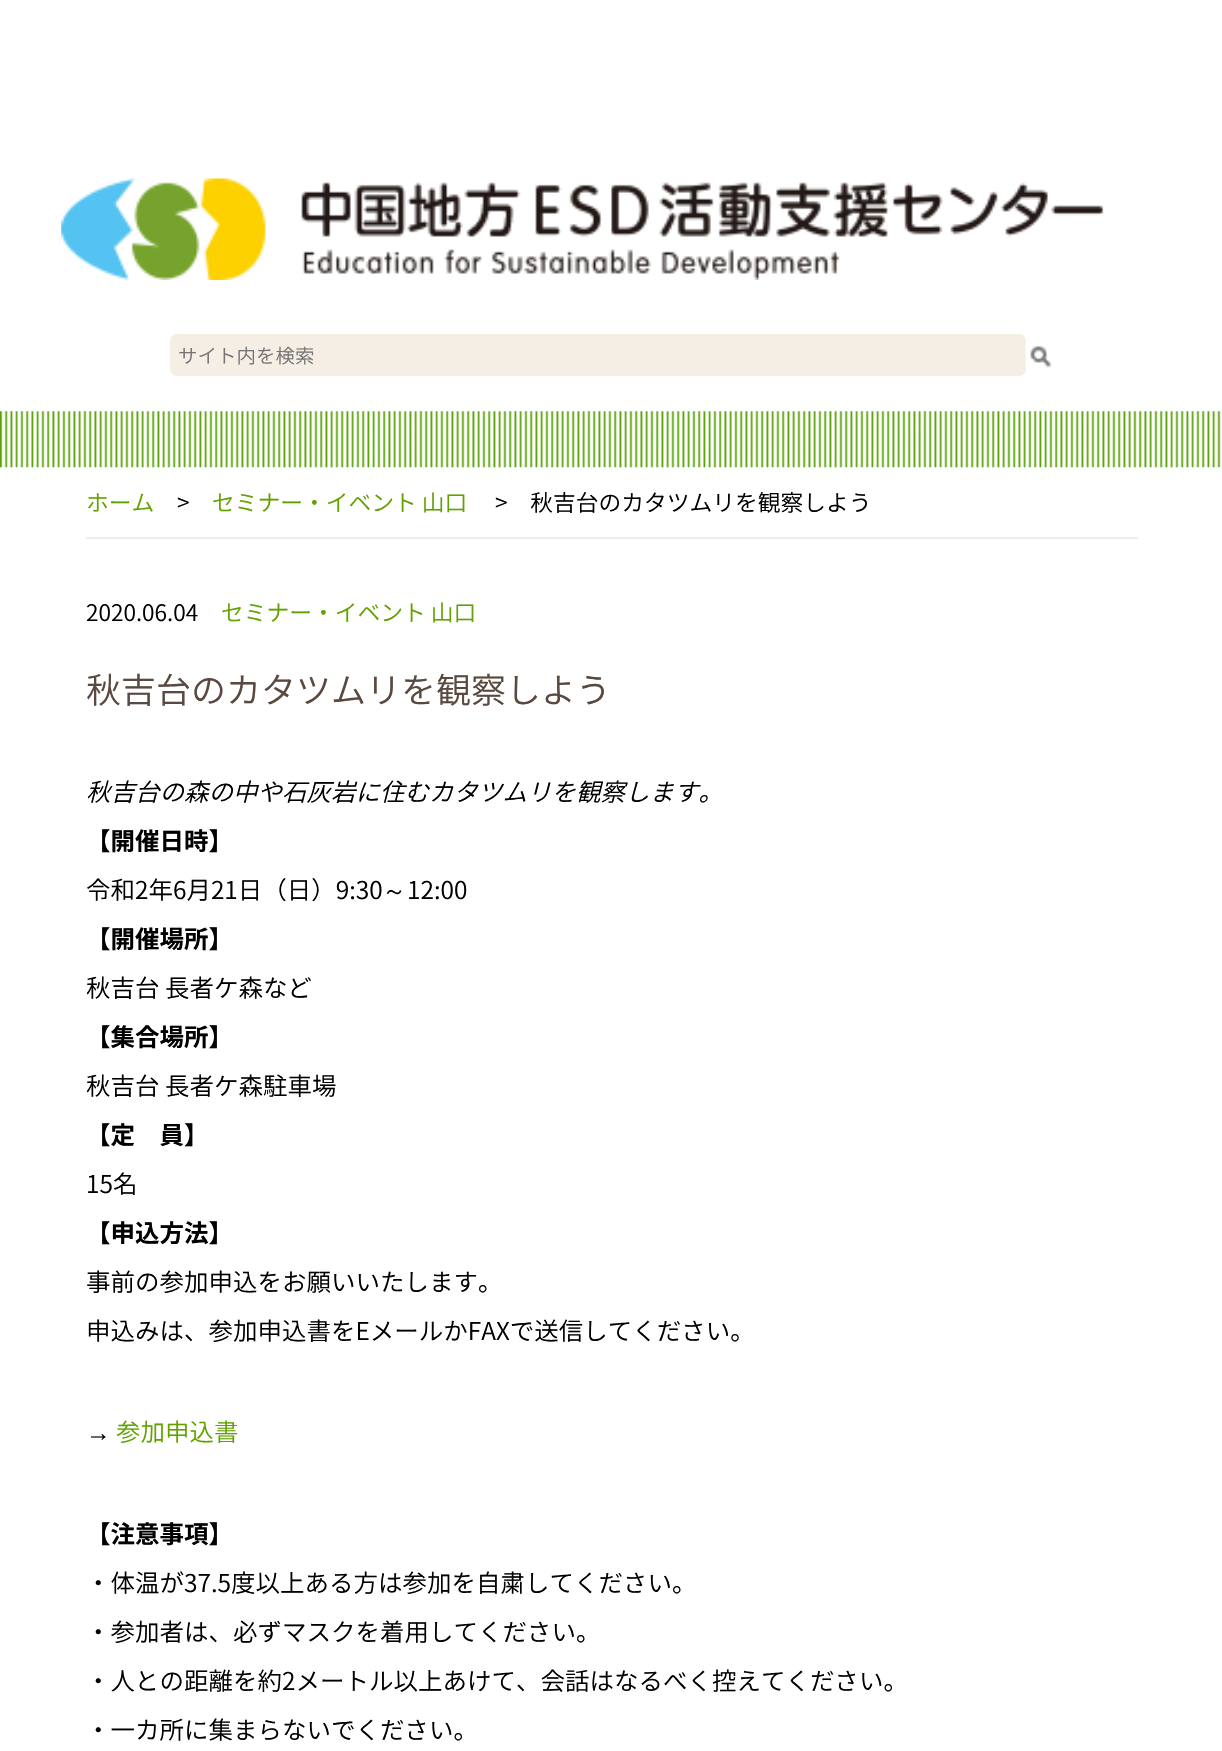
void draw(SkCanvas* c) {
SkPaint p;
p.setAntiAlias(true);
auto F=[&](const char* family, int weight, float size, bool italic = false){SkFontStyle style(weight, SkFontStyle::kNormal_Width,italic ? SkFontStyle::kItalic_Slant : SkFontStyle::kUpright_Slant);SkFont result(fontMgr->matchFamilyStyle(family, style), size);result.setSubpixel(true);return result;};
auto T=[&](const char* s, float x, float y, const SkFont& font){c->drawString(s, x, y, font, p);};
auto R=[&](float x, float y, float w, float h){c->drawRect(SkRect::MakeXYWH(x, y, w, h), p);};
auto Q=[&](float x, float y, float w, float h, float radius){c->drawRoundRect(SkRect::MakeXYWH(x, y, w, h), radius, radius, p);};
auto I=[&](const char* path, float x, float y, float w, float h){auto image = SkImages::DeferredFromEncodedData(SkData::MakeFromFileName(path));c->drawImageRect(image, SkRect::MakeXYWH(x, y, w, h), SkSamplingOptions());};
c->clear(0xffffffff);
I("1.png",61,178,1043,102);
p.setColor(0xfff5eee4);
Q(170,334,856,42,7);
auto f1 = F("Noto Sans JP",300,19.5);
p.setColor(0xff757575);
T("サイト内を検索",178,363,f1);
I("2.png",1025,341,27,28);
I("3.png",0,411,1221,57);
auto f2 = F("Noto Sans JP",300,22.75);
p.setColor(0xff61a100);
T("ホーム",86,511,f2);
p.setColor(0xff000000);
T(">",177,511,f2);
p.setColor(0xff61a100);
T("セミナー・イベント 山口",212,511,f2);
p.setColor(0xff000000);
T(">　秋吉台のカタツムリを観察しよう",495,511,f2);
p.setColor(0xffeeeeee);
R(86,537,1052,2);
p.setColor(0xff000000);
T("2020.06.04",86,621,f2);
p.setColor(0xff61a100);
T("セミナー・イベント 山口",221,621,f2);
auto f3 = F("Noto Sans JP",300,35);
p.setColor(0xff594940);
T("秋吉台のカタツムリを観察しよう",86,703,f3);
auto f4 = F("Noto Sans JP",300,24.5,true);
p.setColor(0xff000000);
T("秋吉台の森の中や石灰岩に住むカタツムリを観察します。",86,801,f4);
auto f5 = F("Noto Sans JP",700,24.5);
T("【開催日時】",86,850,f5);
auto f6 = F("Noto Sans JP",300,24.5);
T("令和2年6月21日（日）9:30",86,899,f6);
auto f7 = F("WenQuanYi Zen Hei",500,24.5);
T("～",382,899,f7);
T("12:00",407,899,f6);
T("【開催場所】",86,948,f5);
T("秋吉台 長者ケ森など",86,997,f6);
T("【集合場所】",86,1046,f5);
T("秋吉台 長者ケ森駐車場",86,1095,f6);
T("【定　員】",86,1144,f5);
T("15名",86,1193,f6);
T("【申込方法】",86,1242,f5);
T("事前の参加申込をお願いいたします。",86,1291,f6);
T("申込みは、参加申込書をEメールかFAXで送信してください。",86,1340,f6);
auto f8 = F("Liberation Serif",400,24.5);
T("→",86,1441,f8);
p.setColor(0xff61a100);
T("参加申込書",116,1441,f6);
p.setColor(0xff000000);
T("【注意事項】",86,1543,f5);
T("・体温が37.5度以上ある方は参加を自粛してください。",86,1592,f6);
T("・参加者は、必ずマスクを着用してください。",86,1641,f6);
T("・人との距離を約2メートル以上あけて、会話はなるべく控えてください。",86,1690,f6);
T("・一カ所に集まらないでください。",86,1739,f6);
}
